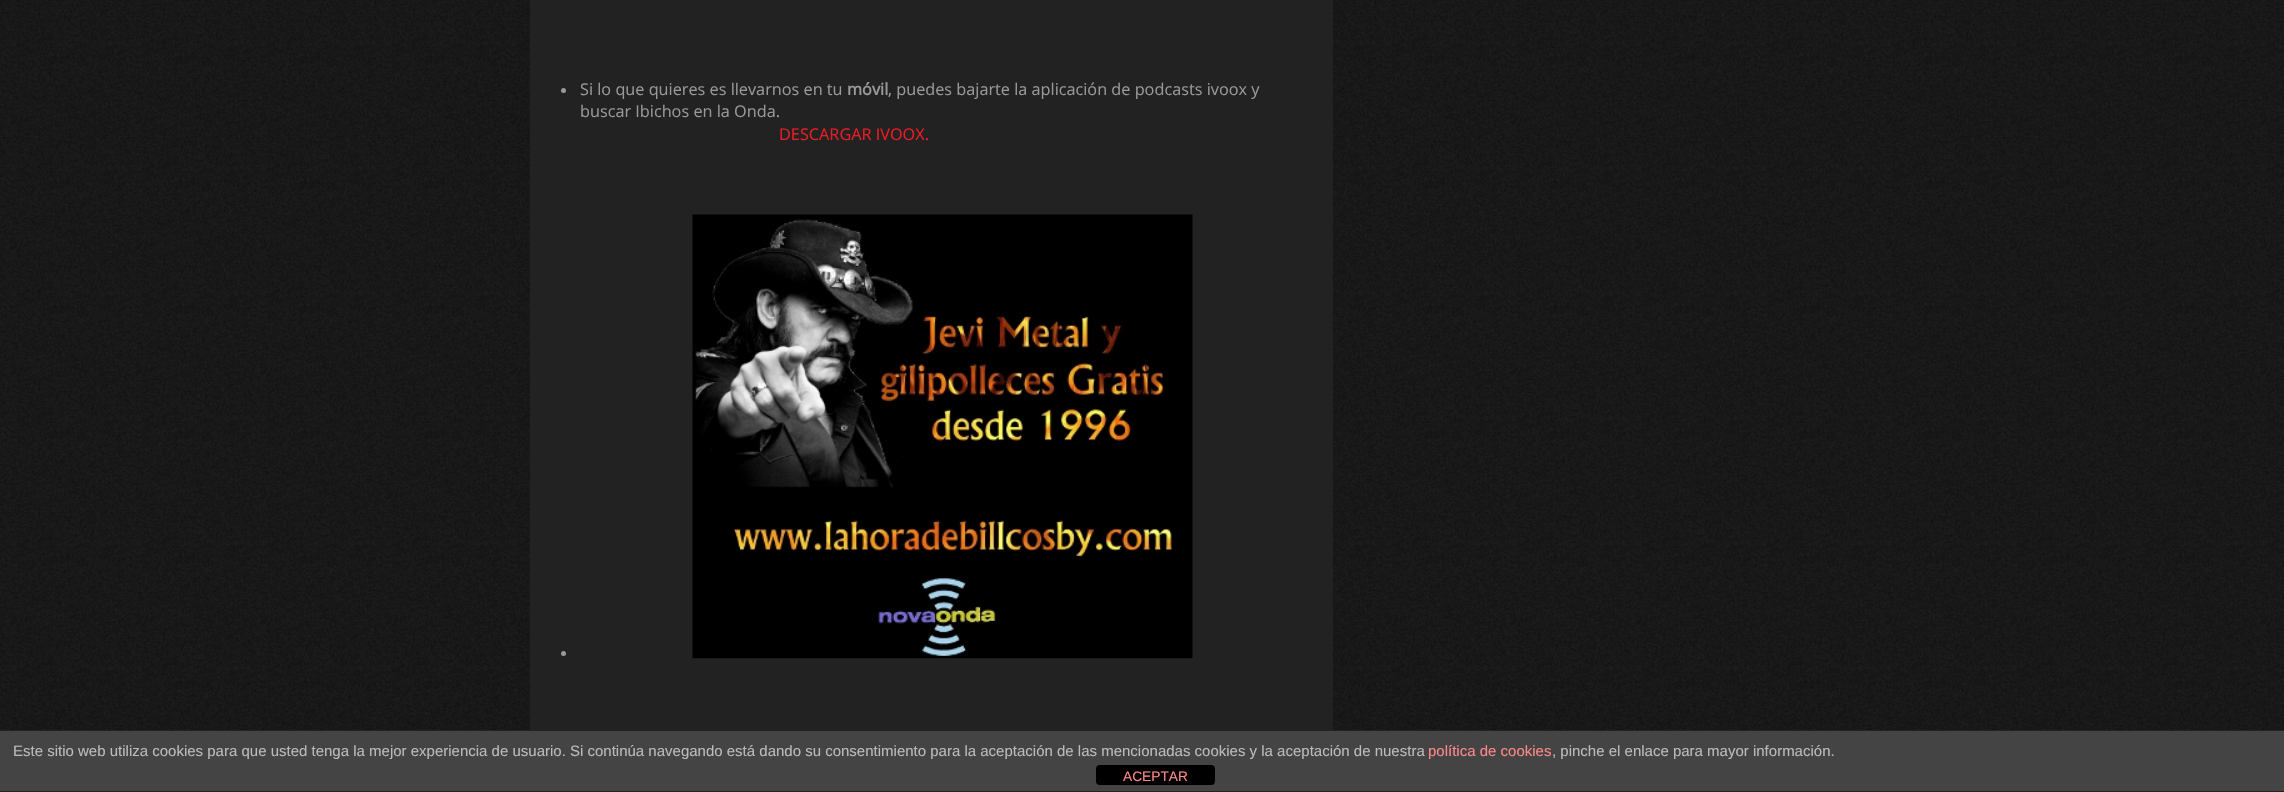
void draw(SkCanvas* c) {
SkPaint p;
p.setAntiAlias(true);
auto F=[&](const char* family, int weight, float size, bool italic = false){SkFontStyle style(weight, SkFontStyle::kNormal_Width,italic ? SkFontStyle::kItalic_Slant : SkFontStyle::kUpright_Slant);SkFont result(fontMgr->matchFamilyStyle(family, style), size);result.setSubpixel(true);return result;};
auto T=[&](const char* s, float x, float y, const SkFont& font){c->drawString(s, x, y, font, p);};
auto R=[&](float x, float y, float w, float h){c->drawRect(SkRect::MakeXYWH(x, y, w, h), p);};
auto Q=[&](float x, float y, float w, float h, float radius){c->drawRoundRect(SkRect::MakeXYWH(x, y, w, h), radius, radius, p);};
auto I=[&](const char* path, float x, float y, float w, float h){auto image = SkImages::DeferredFromEncodedData(SkData::MakeFromFileName(path));c->drawImageRect(image, SkRect::MakeXYWH(x, y, w, h), SkSamplingOptions());};
c->clear(0xffffffff);
I("1.png",0,0,2284,730);
p.setColor(0xff222222);
R(530,0,803,730);
p.setColor(0xff999999);
c->drawCircle(563.5,90.5,2.5,p);
auto f1 = F("Open Sans",400,16.25);
T("Si lo que quieres es llevarnos en tu",580,95,f1);
auto f2 = F("Open Sans",700,16.25);
T("móvil",847,95,f2);
T(", puedes bajarte la aplicación de podcasts ivoox y",888,95,f1);
T("buscar Ibichos en la Onda.",580,117,f1);
p.setColor(0xffed1c24);
T("DESCARGAR IVOOX.",779,140,f1);
p.setColor(0xff999999);
c->drawCircle(563.5,653.5,2.5,p);
I("2.png",692,214,501,445);
p.setColor(0xff444444);
R(0,731,2284,60);
p.setColor(0xff222222);
R(0,730,2284,1);
R(0,791,2284,1);
auto f3 = F("Liberation Sans",400,15);
p.setColor(0xffbbbbbb);
T("Este sitio web utiliza cookies para que usted tenga la mejor experiencia de usuario. Si continúa navegando está dando su consentimiento para la aceptación de las mencionadas cookies y la aceptación de nuestra",13,756,f3);
p.setColor(0xffff8888);
T("política de cookies",1428,756,f3);
p.setColor(0xffbbbbbb);
T(", pinche el enlace para mayor información.",1552,756,f3);
p.setColor(0xff000000);
Q(1096,765,119,20,4);
auto f4 = F("Liberation Sans",400,13.75);
p.setColor(0xffff8888);
T("ACEPTAR",1123,781,f4);
}
